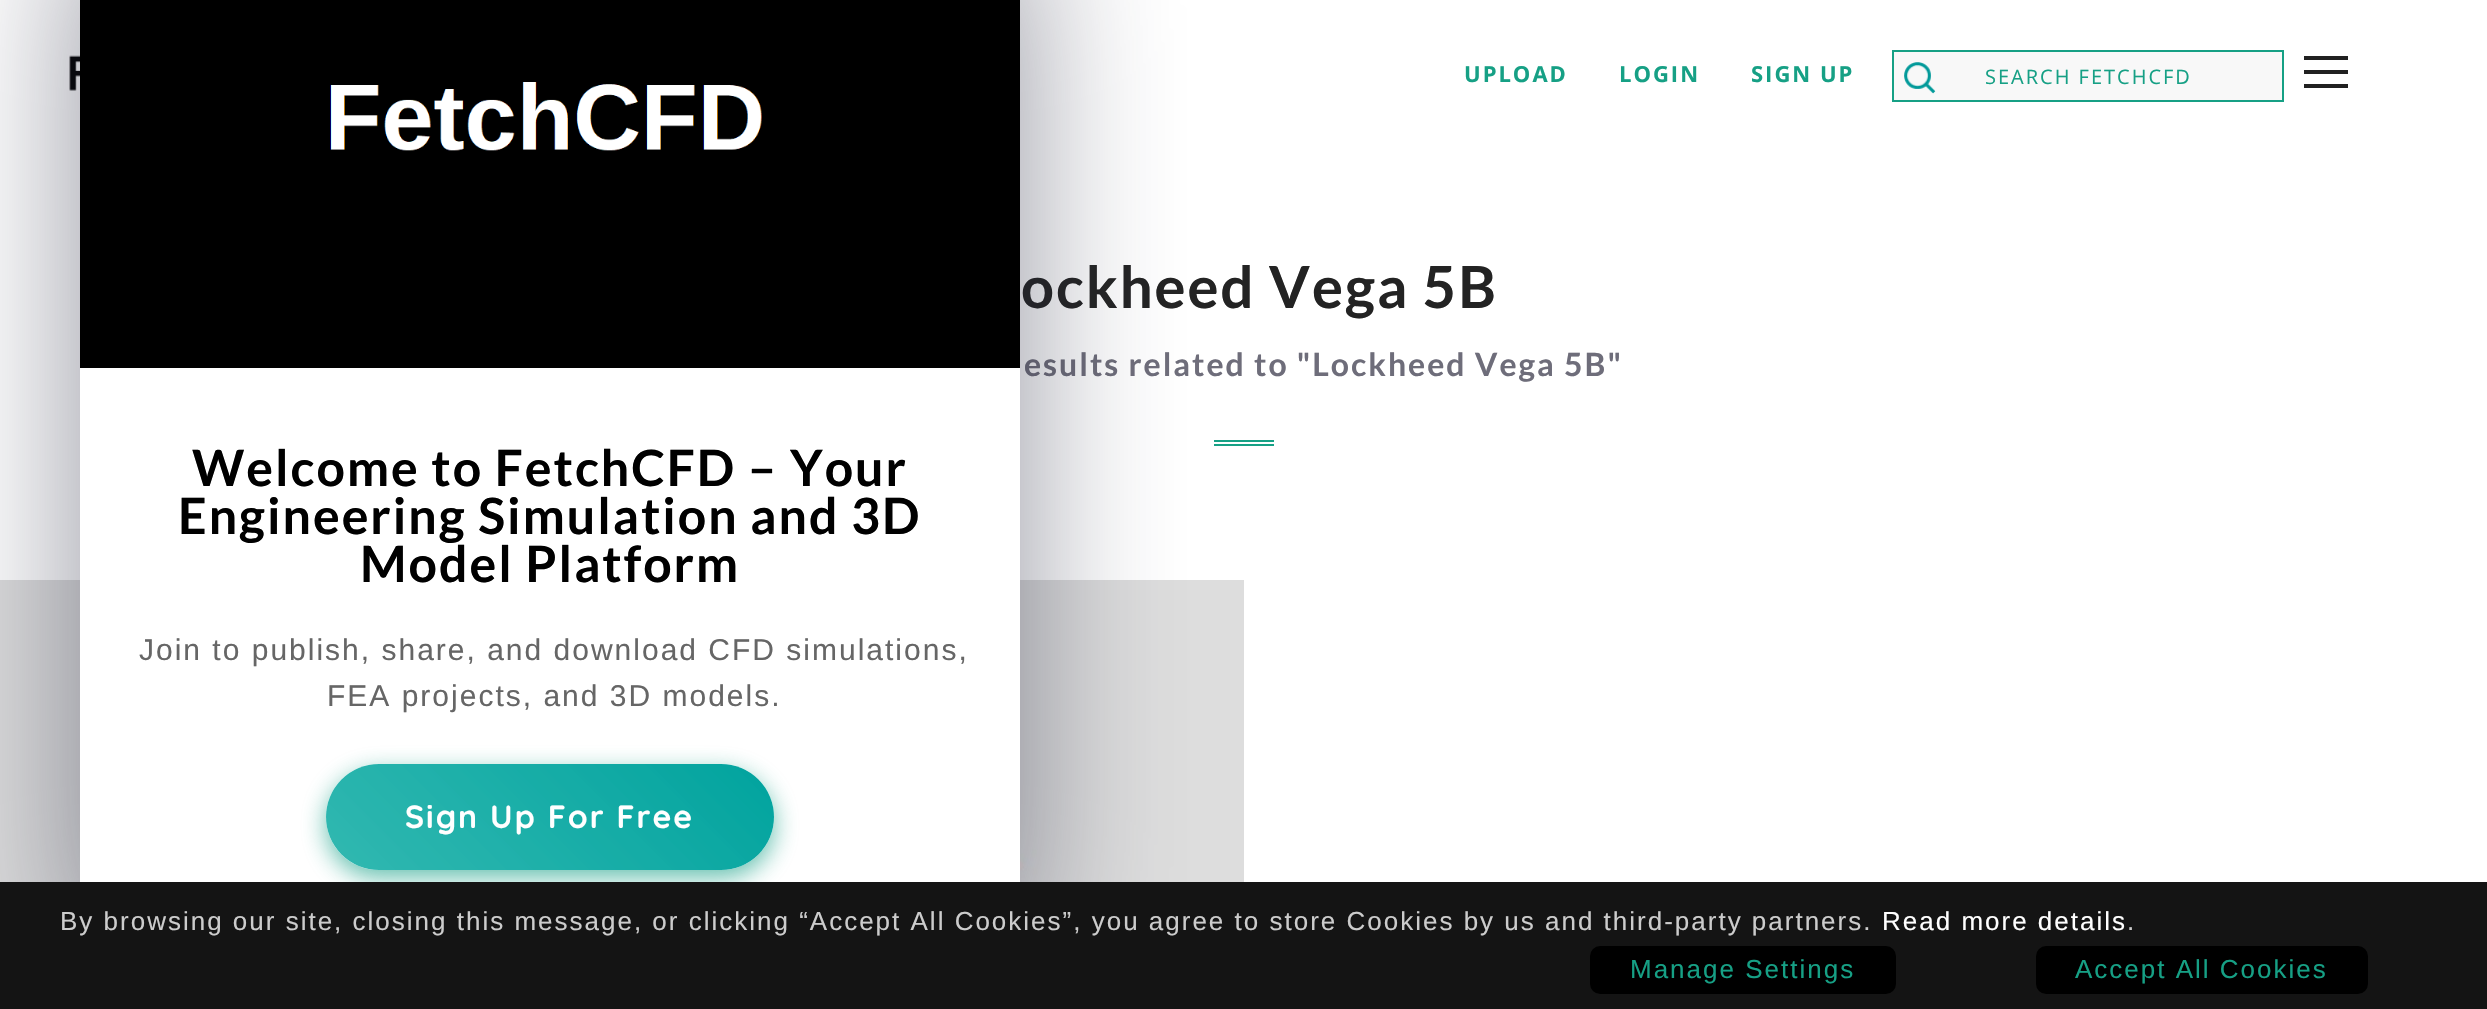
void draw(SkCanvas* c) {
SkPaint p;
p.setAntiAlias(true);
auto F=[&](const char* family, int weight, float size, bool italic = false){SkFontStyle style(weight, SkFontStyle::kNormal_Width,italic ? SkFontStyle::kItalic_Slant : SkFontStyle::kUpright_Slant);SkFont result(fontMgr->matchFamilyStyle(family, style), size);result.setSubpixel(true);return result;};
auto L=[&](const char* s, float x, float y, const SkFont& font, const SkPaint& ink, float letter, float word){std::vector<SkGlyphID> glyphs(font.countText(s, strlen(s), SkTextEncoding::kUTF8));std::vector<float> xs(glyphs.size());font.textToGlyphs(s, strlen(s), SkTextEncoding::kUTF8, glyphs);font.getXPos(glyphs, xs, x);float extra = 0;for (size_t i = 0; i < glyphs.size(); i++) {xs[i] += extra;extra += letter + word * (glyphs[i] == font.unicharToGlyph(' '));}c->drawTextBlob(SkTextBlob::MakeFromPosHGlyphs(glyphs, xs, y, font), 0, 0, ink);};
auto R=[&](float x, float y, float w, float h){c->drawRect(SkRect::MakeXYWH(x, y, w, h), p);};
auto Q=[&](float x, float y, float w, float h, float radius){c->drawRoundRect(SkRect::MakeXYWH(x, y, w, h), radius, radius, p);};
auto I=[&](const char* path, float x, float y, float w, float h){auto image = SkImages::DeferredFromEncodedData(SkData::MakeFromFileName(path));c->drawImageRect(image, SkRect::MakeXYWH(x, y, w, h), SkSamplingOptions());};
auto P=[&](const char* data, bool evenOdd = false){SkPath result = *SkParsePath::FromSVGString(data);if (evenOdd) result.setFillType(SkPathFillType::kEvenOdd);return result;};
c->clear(0xffffffff);
I("1.png",69,55,11,36);
auto f1 = F("Open Sans",700,22);
p.setColor(0xff16a085);
L("UPLOAD",1464,82,f1,p,2,0);
L("LOGIN",1619,82,f1,p,2,0);
L("SIGN UP",1751,82,f1,p,2,0);
p.setColor(0xfff8f8f8);
R(1894,52,388,48);
I("2.png",1904,62,32,32);
p.setStroke(true);
p.setStrokeWidth(2);
p.setColor(0xff16a085);
c->drawRect(SkRect::MakeXYWH(1893,51,390,50),p);
auto f2 = F("Open Sans",400,20);
p.setStroke(false);
L("SEARCH FETCHCFD",1985,84,f2,p,2,0);
p.setColor(0xff212121);
R(2304,70,44,4);
R(2304,56,44,4);
R(2304,84,44,4);
auto f3 = F("Lato",700,58);
p.setColor(0xff232323);
L("ockheed Vega 5B",1021,308,f3,p,2,0);
auto f4 = F("Lato",700,32);
p.setColor(0xff6e6d7a);
L("esults related to \"Lockheed Vega 5B\"",1024,376,f4,p,2,0);
p.setColor(0xff16a085);
R(1214,440,60,2);
R(1214,444,60,2);
I("4.png",0,580,1244,302);
p.setColor(0x8022233a);
p.setMaskFilter(SkMaskFilter::MakeBlur(kNormal_SkBlurStyle, 80));
c->drawRoundRect(SkRect::MakeXYWH(80,-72,940,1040),16,16,p);
p.setMaskFilter(nullptr);
p.setColor(0xffffffff);
R(80,368,940,514);
I("3.png",80,0,940,368);
auto f5 = F("Lato",700,50);
p.setColor(0xff000000);
L("Welcome to FetchCFD – Your",192,486,f5,p,2,0);
L("Engineering Simulation and 3D",178,534,f5,p,2,0);
L("Model Platform",360,582,f5,p,2,0);
auto f6 = F("Liberation Sans",400,30);
p.setColor(0xff666666);
L("Join to publish, share, and download CFD simulations,",139,660,f6,p,2,0);
L("FEA projects, and 3D models.",327,706,f6,p,2,0);
c->save();
c->clipPath(P("M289 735h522v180h-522zm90 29h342c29.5 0 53 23.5 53 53c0 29.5-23.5 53-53 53h-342c-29.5 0-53-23.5-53-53c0-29.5 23.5-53 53-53z",true),true);
p.setColor(0xa816a085);
p.setMaskFilter(SkMaskFilter::MakeBlur(kNormal_SkBlurStyle, 12));
c->drawRoundRect(SkRect::MakeXYWH(326,772,448,106),53,53,p);
p.setMaskFilter(nullptr);
c->restore();
{
const SkColor colors[] = {0xeb20b2aa,0xff00a39e};
const float stops[] = {0,1};
const SkPoint ends[] = {{412,956}, {689,679}};
p.setShader(SkGradientShader::MakeLinear(ends, colors, stops, 2, SkTileMode::kClamp));
p.setAlpha(255);
}
Q(326,764,448,106,53);
auto f7 = F("Quicksand",700,32);
p.setShader(nullptr);
p.setColor(0xffffffff);
L("Sign Up For Free",405,828,f7,p,2,0);
p.setColor(0xff141414);
R(0,882,2487,127);
auto f8 = F("Liberation Sans",400,26);
p.setColor(0xffcccccc);
L("By browsing our site, closing this message, or clicking “Accept All Cookies”, you agree to store Cookies by us and third-party partners.",60,930,f8,p,2,0);
p.setColor(0xffffffff);
L("Read more details",1882,930,f8,p,2,0);
p.setColor(0xffcccccc);
L(".",2127,930,f8,p,2,0);
p.setColor(0xff000000);
Q(1590,946,306,48,10);
p.setColor(0xff16a085);
L("Manage Settings",1630,978,f8,p,2,0);
p.setColor(0xff000000);
Q(2036,946,332,48,10);
p.setColor(0xff16a085);
L("Accept All Cookies",2075,978,f8,p,2,0);
}
